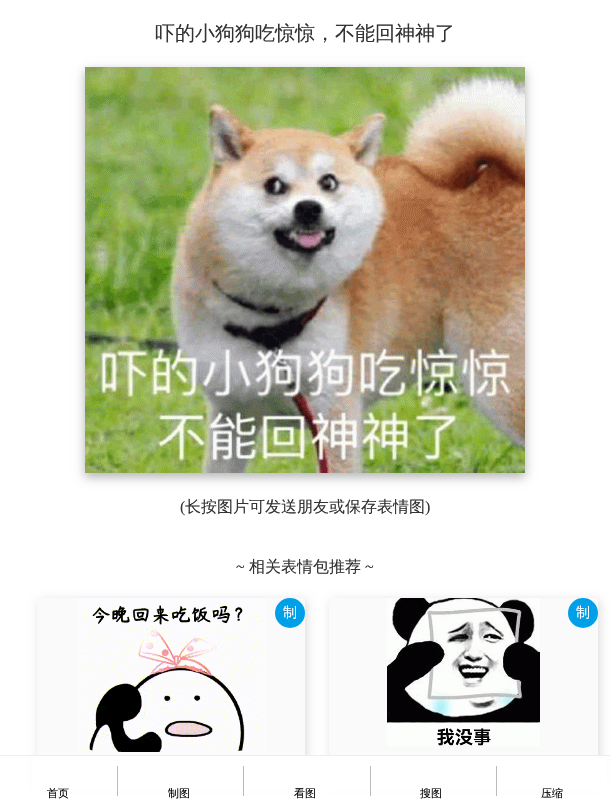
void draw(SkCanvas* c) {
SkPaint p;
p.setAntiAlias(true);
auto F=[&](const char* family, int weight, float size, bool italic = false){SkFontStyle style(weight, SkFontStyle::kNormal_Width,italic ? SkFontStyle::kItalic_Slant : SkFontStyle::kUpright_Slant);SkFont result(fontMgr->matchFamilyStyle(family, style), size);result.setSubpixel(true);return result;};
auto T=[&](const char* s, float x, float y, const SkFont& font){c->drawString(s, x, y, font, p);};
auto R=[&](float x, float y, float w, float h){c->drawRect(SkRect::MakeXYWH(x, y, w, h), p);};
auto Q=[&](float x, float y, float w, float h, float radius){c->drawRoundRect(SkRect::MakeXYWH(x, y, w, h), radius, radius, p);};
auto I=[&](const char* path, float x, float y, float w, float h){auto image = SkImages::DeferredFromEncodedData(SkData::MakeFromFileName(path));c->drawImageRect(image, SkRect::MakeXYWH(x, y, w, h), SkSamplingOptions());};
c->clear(0xffffffff);
auto f1 = F("WenQuanYi Zen Hei",500,20);
p.setColor(0xff333333);
T("吓的小狗狗吃惊惊，不能回神神了",155,40,f1);
p.setColor(0x4d000000);
p.setMaskFilter(SkMaskFilter::MakeBlur(kNormal_SkBlurStyle, 5));
c->drawRect(SkRect::MakeXYWH(85,71,440,406),p);
p.setMaskFilter(nullptr);
I("1.png",85,67,440,406);
auto f2 = F("Liberation Serif",400,16);
p.setColor(0xff333333);
T("(",180,512,f2);
auto f3 = F("WenQuanYi Zen Hei",500,16);
T("长按图片可发送朋友或保存表情图",185,512,f3);
T(")",425,512,f2);
T("~",236,572,f2);
T("相关表情包推荐",249,572,f3);
T("~",365,572,f2);
p.setColor(0xffdddddd);
p.setMaskFilter(SkMaskFilter::MakeBlur(kNormal_SkBlurStyle, 5));
c->drawRoundRect(SkRect::MakeXYWH(39,600,268,184),4,4,p);
p.setMaskFilter(nullptr);
p.setColor(0xfffafafa);
Q(37,598,268,184,4);
I("2.png",77,598,188,154);
p.setColor(0xff00a0e9);
c->drawCircle(290,613,15,p);
auto f4 = F("WenQuanYi Zen Hei",500,14);
p.setColor(0xffffffff);
T("制",283,617,f4);
p.setColor(0xffdddddd);
p.setMaskFilter(SkMaskFilter::MakeBlur(kNormal_SkBlurStyle, 5));
c->drawRoundRect(SkRect::MakeXYWH(331,600,269,184),4,4,p);
p.setMaskFilter(nullptr);
p.setColor(0xfffafafa);
Q(329,598,269,184,4);
I("3.png",387,598,153,148);
p.setColor(0xff00a0e9);
c->drawCircle(583,613,15,p);
p.setColor(0xffffffff);
T("制",576,617,f4);
R(32,756,575,35);
p.setColor(0xffeeeeee);
R(0,755,610,1);
p.setColor(0xffbbbbbb);
R(117,766,1,30);
R(243,766,1,30);
R(370,766,1,30);
R(496,766,1,30);
auto f5 = F("WenQuanYi Zen Hei",500,11);
p.setColor(0xff000000);
T("首页",47,797,f5);
T("制图",168,797,f5);
T("看图",294,797,f5);
T("搜图",420,797,f5);
T("压缩",541,797,f5);
}
